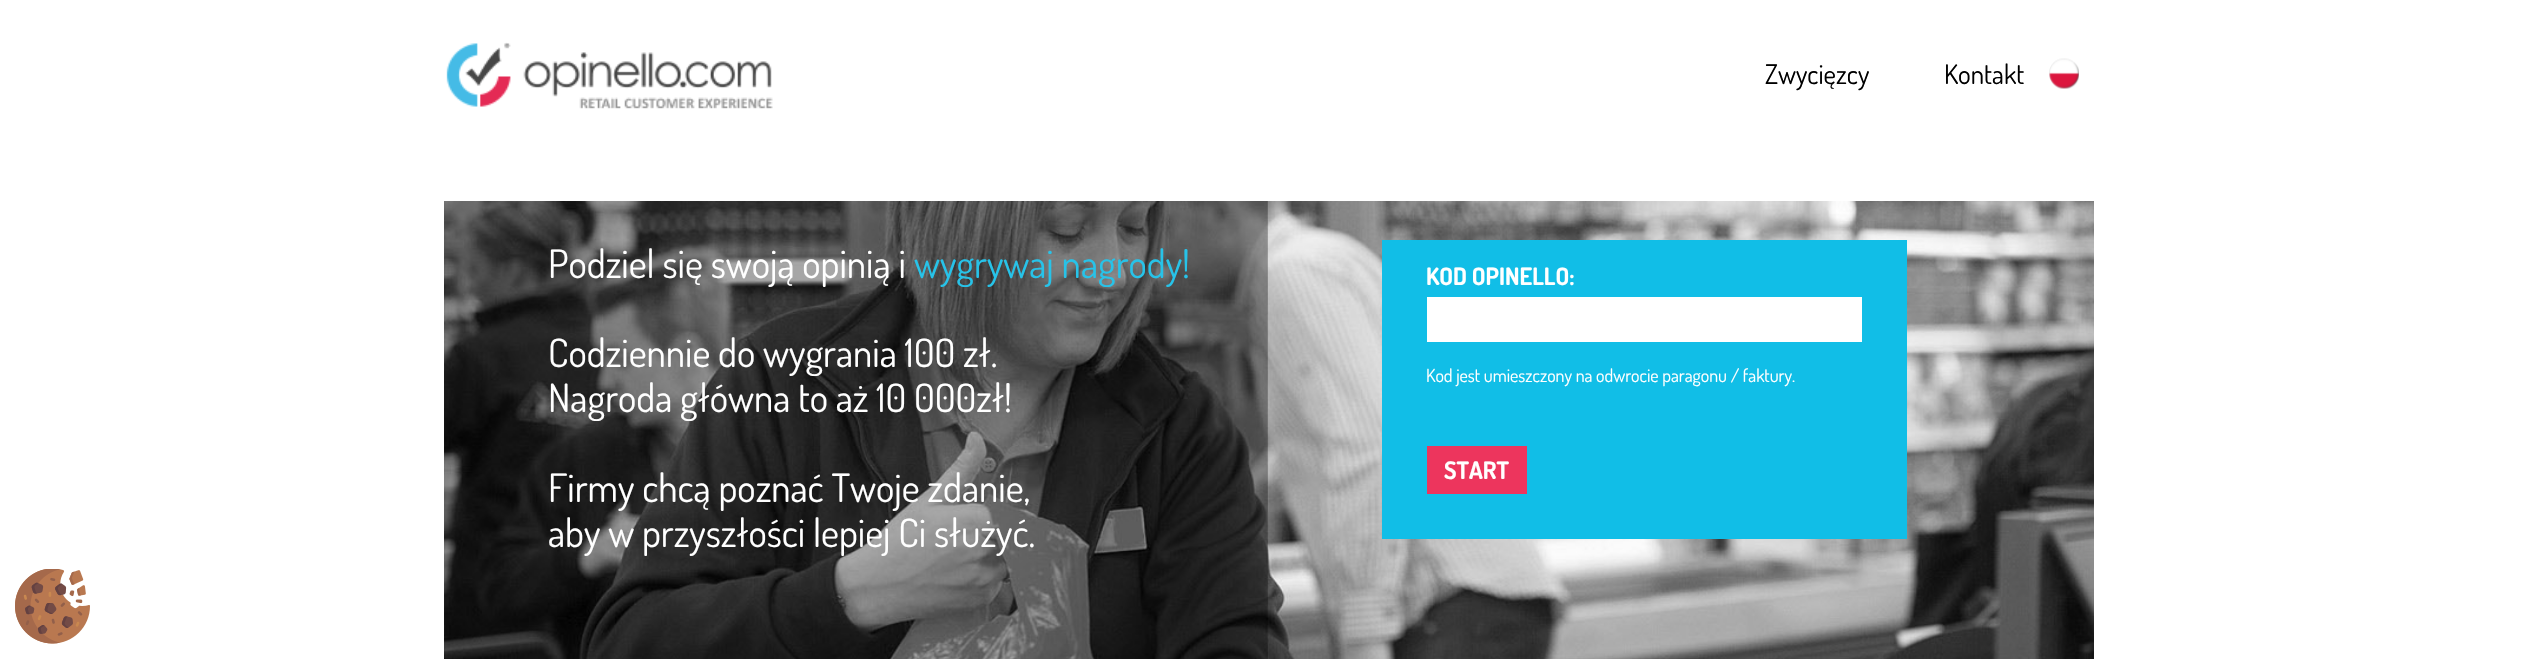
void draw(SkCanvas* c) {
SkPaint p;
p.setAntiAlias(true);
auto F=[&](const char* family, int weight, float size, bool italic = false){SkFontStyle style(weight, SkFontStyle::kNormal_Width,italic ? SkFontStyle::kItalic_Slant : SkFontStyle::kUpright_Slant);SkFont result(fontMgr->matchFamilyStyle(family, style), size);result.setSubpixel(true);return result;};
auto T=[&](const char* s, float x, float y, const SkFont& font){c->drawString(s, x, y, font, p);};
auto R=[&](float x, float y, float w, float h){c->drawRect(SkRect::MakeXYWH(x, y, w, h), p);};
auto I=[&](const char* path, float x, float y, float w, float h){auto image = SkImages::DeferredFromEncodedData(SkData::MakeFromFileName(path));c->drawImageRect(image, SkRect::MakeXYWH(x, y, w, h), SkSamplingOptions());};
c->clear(0xffffffff);
I("1.png",446,42,327,67);
auto f1 = F("Dosis",400,27);
p.setColor(0xff000000);
T("Zwycięzcy",1765,84,f1);
T("Kontakt",1944,84,f1);
I("2.png",2049,58,30,31);
I("3.png",444,201,1650,458);
auto f2 = F("Dosis",400,39);
p.setColor(0xffffffff);
T("Podziel się swoją opinią i",548,278,f2);
p.setColor(0xff27c3e9);
T("wygrywaj nagrody!",914,278,f2);
p.setColor(0xffffffff);
T("Codziennie do wygrania 100 zł.",548,367,f2);
T("Nagroda główna to aż 10 000zł!",548,412,f2);
T("Firmy chcą poznać Twoje zdanie,",548,502,f2);
T("aby w przyszłości lepiej Ci służyć.",548,547,f2);
p.setColor(0xff11bee7);
R(1382,240,525,299);
auto f3 = F("Dosis",700,24);
p.setColor(0xffffffff);
T("KOD OPINELLO:",1426,285,f3);
R(1427,297,435,45);
auto f4 = F("Dosis",400,18);
T("Kod jest umieszczony na odwrocie paragonu / faktury.",1426,382,f4);
p.setColor(0xffed355d);
R(1427,446,100,48);
p.setColor(0xffffffff);
T("START",1444,479,f3);
I("4.png",15,569,75,75);
}
